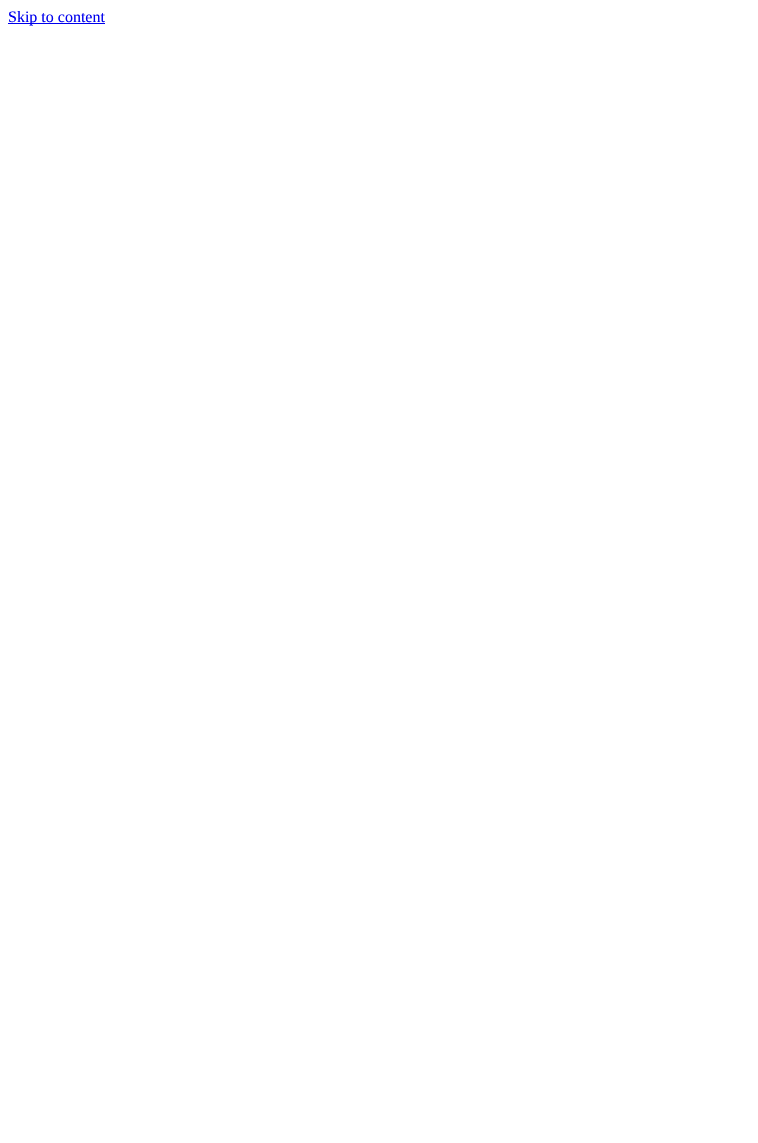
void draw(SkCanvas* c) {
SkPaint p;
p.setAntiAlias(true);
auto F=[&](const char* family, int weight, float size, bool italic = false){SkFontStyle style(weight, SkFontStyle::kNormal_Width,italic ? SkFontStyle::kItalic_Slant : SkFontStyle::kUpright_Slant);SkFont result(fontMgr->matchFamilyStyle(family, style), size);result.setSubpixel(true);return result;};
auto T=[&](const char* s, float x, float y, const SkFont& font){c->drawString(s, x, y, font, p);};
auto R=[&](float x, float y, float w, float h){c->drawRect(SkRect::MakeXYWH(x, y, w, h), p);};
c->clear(0xffffffff);
p.setColor(0xff0000ee);
R(8,23,97,1);
auto f1 = F("Liberation Serif",400,16);
T("Skip to content",8,22,f1);
}
